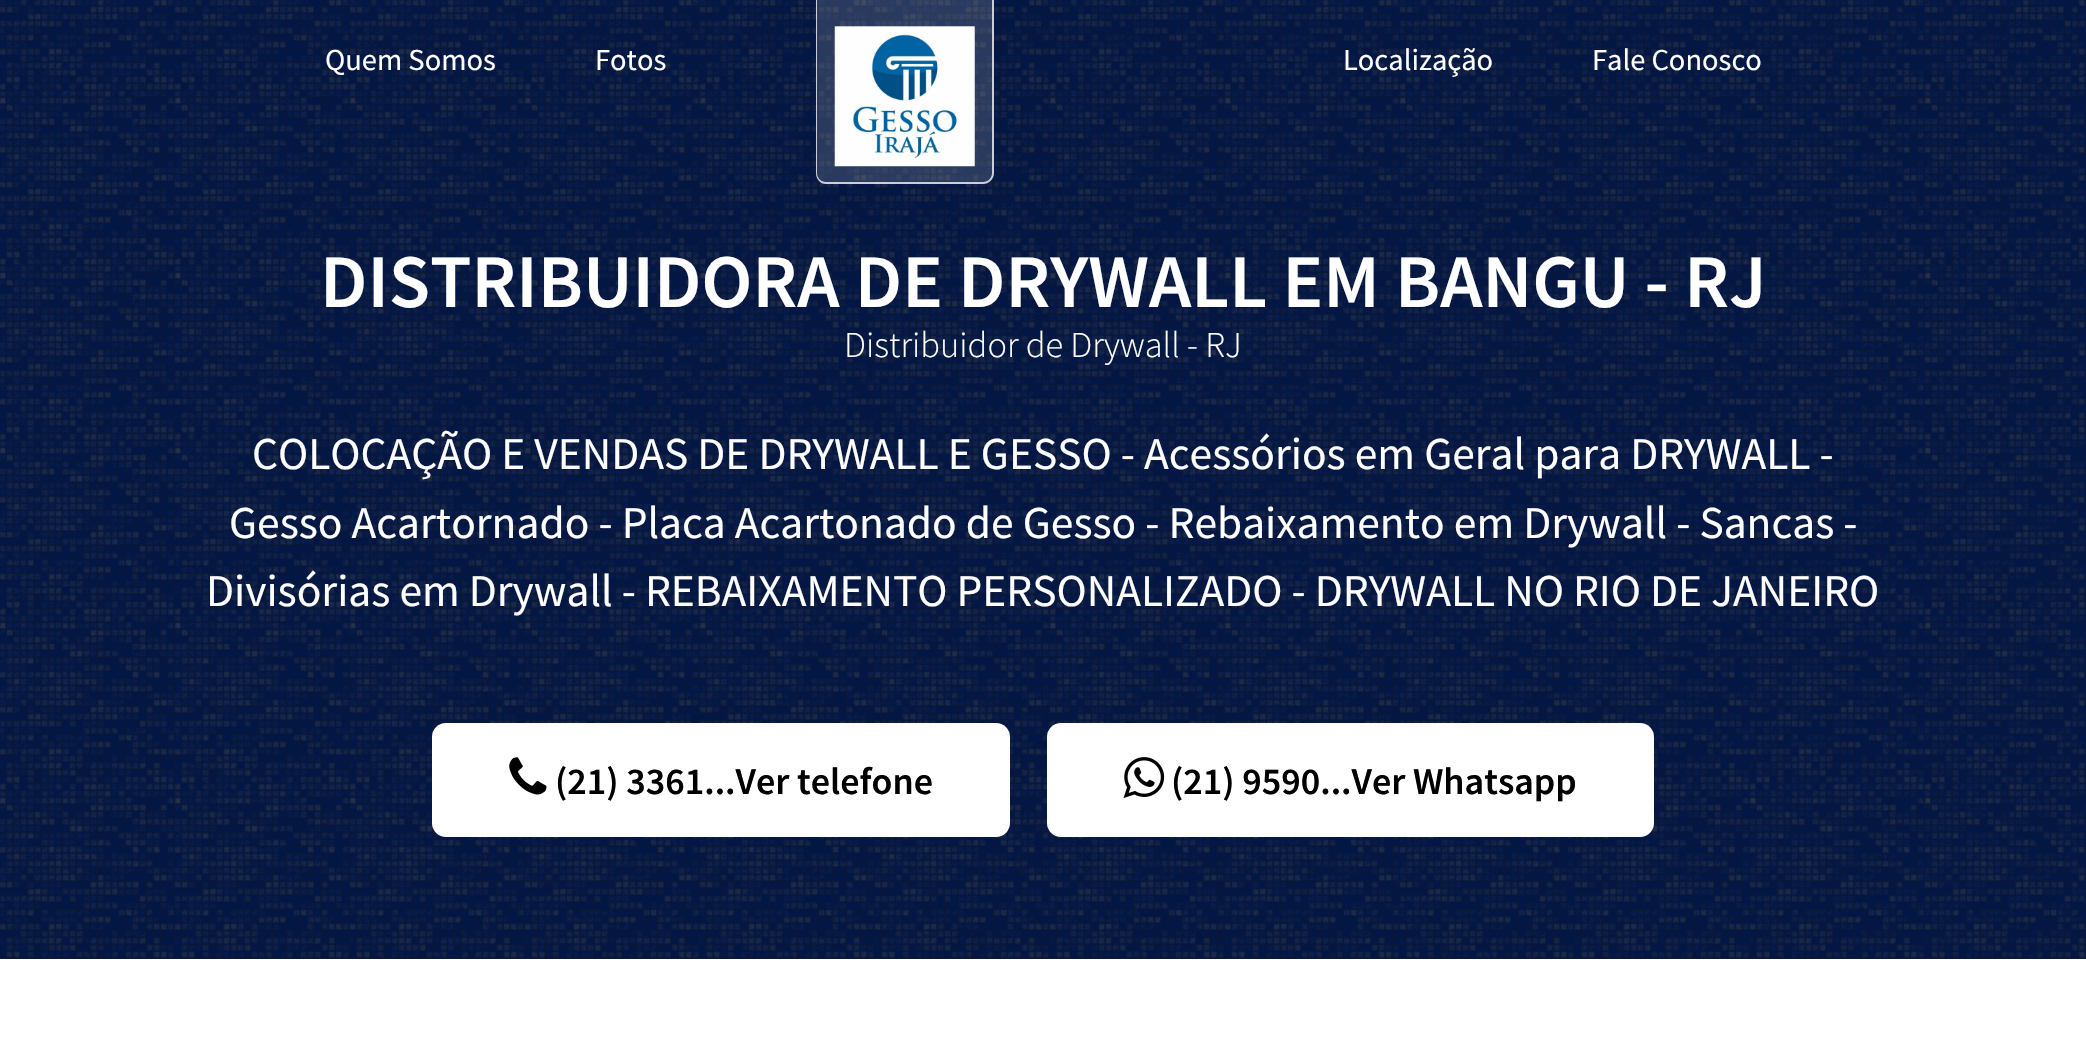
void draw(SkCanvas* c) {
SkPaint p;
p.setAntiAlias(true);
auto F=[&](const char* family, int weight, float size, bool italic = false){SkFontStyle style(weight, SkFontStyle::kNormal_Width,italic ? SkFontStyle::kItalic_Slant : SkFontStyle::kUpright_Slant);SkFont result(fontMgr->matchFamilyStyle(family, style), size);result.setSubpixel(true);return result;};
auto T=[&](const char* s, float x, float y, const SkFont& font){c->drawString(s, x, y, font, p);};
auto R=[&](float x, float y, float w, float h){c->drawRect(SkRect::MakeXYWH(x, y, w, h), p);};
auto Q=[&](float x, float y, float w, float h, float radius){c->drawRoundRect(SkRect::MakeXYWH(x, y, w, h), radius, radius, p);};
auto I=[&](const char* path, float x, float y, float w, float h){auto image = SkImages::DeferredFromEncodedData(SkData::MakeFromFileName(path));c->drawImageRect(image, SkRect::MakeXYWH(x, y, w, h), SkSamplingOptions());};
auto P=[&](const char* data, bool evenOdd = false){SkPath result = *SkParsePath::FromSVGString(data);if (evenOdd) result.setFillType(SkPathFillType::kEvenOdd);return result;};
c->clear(0xff01174b);
I("1.png",0,0,2086,959);
p.setColor(0x26ffffff);
c->drawPath(P("M816 0h178v173c0 6-5 11-11 11h-156c-6 0-11-5-11-11z"),p);
p.setColor(0xbfffffff);
c->drawPath(P("M816 0h178v173c0 6-5 11-11 11h-157c-6 0-10-5-10-11zm1 0h175v173c0 5-4 9-9 9h-157c-5 0-9-4-9-9z",true),p);
I("2.png",834,26,141,141);
auto f1 = F("Source Sans Pro",400,30.5);
p.setColor(0xffffffff);
T("Quem Somos",325,70,f1);
T("Fotos",595,70,f1);
T("Localização",1343,70,f1);
T("Fale Conosco",1592,70,f1);
auto f2 = F("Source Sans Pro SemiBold",600,75.8);
T("DISTRIBUIDORA DE DRYWALL EM BANGU - RJ",320,307,f2);
auto f3 = F("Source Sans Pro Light",300,36.4);
T("Distribuidor de Drywall - RJ",844,357,f3);
auto f4 = F("Source Sans Pro",400,45.5);
T("COLOCAÇÃO E VENDAS DE DRYWALL E GESSO - Acessórios em Geral para DRYWALL -",252,469,f4);
T("Gesso Acartornado - Placa Acartonado de Gesso - Rebaixamento em Drywall - Sancas -",229,538,f4);
T("Divisórias em Drywall - REBAIXAMENTO PERSONALIZADO - DRYWALL NO RIO DE JANEIRO",206,606,f4);
Q(432,723,578,114,14);
I("3.png",509,757,38,38);
auto f5 = F("Source Sans Pro SemiBold",600,38);
p.setColor(0xff000000);
T("(21) 3361...Ver telefone",555,794,f5);
p.setColor(0xffffffff);
Q(1047,723,607,114,14);
I("4.png",1123,757,42,41);
p.setColor(0xff000000);
T("(21) 9590...Ver Whatsapp",1171,794,f5);
p.setColor(0xffffffff);
R(0,959,2086,79);
}
